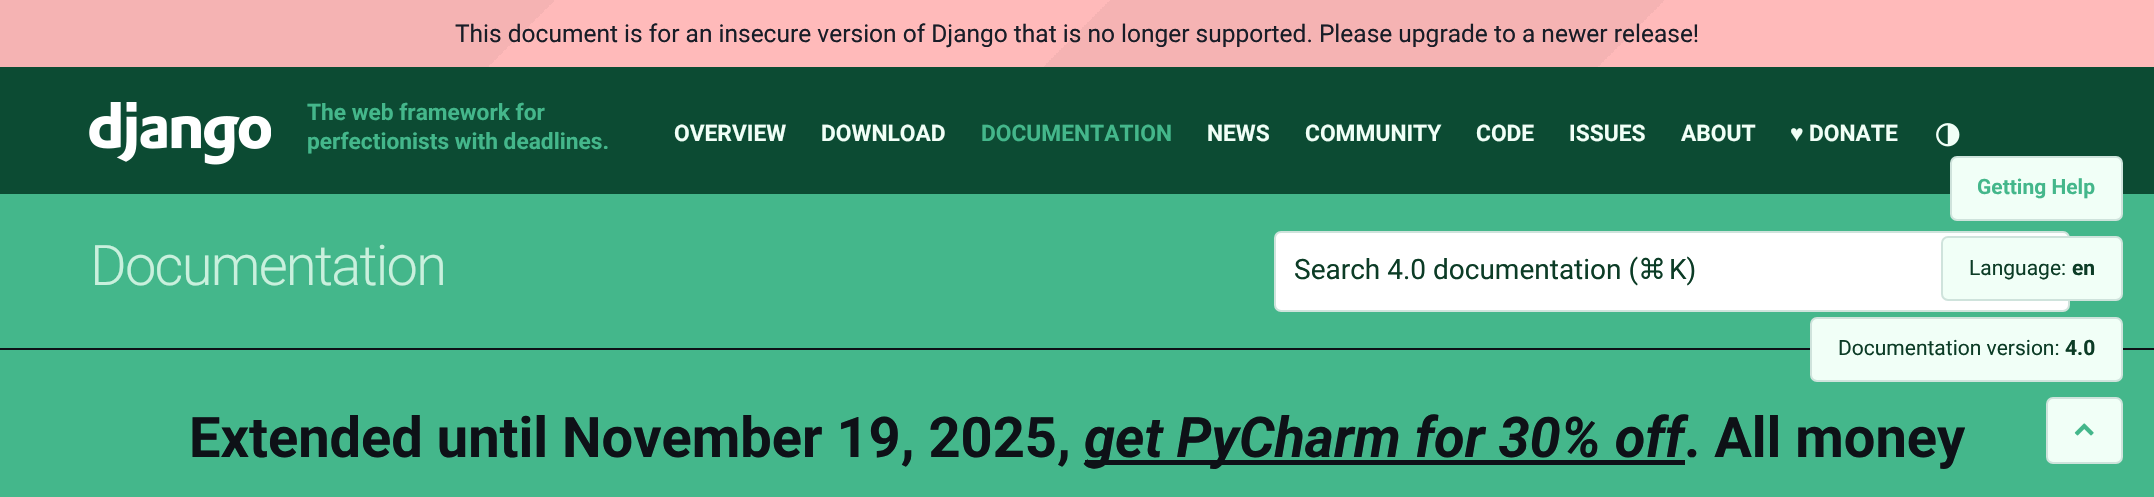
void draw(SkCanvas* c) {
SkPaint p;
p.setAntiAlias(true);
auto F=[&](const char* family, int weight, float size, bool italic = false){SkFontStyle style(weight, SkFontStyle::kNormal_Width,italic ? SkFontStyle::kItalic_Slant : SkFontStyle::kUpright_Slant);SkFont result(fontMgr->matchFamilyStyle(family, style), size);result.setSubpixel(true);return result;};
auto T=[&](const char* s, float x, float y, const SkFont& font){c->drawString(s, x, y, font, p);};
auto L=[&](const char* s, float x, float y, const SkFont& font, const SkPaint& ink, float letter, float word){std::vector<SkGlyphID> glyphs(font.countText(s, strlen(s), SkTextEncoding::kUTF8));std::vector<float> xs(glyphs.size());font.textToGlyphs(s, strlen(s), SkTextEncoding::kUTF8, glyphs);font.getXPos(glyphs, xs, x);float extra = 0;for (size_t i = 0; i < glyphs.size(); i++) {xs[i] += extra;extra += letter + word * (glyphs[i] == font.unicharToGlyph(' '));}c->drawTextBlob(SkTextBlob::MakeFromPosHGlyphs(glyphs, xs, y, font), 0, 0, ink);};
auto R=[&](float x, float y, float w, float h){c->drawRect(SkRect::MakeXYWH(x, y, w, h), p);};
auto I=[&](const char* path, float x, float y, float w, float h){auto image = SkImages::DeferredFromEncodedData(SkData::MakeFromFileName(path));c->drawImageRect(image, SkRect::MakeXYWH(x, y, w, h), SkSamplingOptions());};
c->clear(0xff44b78b);
{
const SkColor colors[] = {0xfff5b3b3,0xffffbaba,0xffffbaba,0xfff5b3b3,0xfff5b3b3,0xffffbaba,0xffffbaba};
const float stops[] = {.25,.25,.5,.5,.75,.75,1};
const SkPoint ends[] = {{522,-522}, {1632,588}};
p.setShader(SkGradientShader::MakeLinear(ends, colors, stops, 7, SkTileMode::kClamp));
p.setAlpha(255);
}
R(0,0,2154,67);
auto f1 = F("Roboto",400,24.5);
p.setShader(nullptr);
p.setColor(0xff181d27);
T("This document is for an insecure version of Django that is no longer supported. Please upgrade to a newer release!",455,42,f1);
p.setColor(0xff0c4b33);
R(0,67,2154,127);
I("1.png",89,102,182,63);
auto f2 = F("Roboto",700,22.75);
p.setColor(0xff44b78b);
T("The web framework for",307,120,f2);
T("perfectionists with deadlines.",307,149,f2);
p.setColor(0xfff1fff7);
T("OVERVIEW",674,141,f2);
T("DOWNLOAD",821,141,f2);
p.setColor(0xff44b78b);
T("DOCUMENTATION",981,141,f2);
p.setColor(0xfff1fff7);
T("NEWS",1207,141,f2);
T("COMMUNITY",1305,141,f2);
T("CODE",1476,141,f2);
T("ISSUES",1569,141,f2);
T("ABOUT",1681,141,f2);
auto f3 = F("Liberation Sans",700,22.75);
T("♥",1790,141,f3);
T("DONATE",1809,141,f2);
I("2.png",1936,123,24,24);
auto f4 = F("Roboto",300,56);
p.setColor(0xffc9f0dd);
L("Documentation",90,285,f4,p,-1.75,0);
p.setColor(0xffffffff);
c->drawRoundRect(SkRect::MakeXYWH(1275,232,794,79),6,6,p);
p.setStroke(true);
p.setStrokeWidth(2);
p.setColor(0xffcfe3dc);
c->drawRoundRect(SkRect::MakeXYWH(1275,232,794,79),6,6,p);
auto f5 = F("Roboto",400,28);
p.setStroke(false);
p.setColor(0xff0c3c26);
T("Search 4.0 documentation (",1294,279,f5);
auto f6 = F("DejaVu Sans",400,28);
T("⌘",1638,279,f6);
T("K)",1669,279,f5);
p.setColor(0xfff1fff7);
c->drawRoundRect(SkRect::MakeXYWH(1951,157,171,63),6,6,p);
p.setStroke(true);
p.setColor(0xffcfe3dc);
c->drawRoundRect(SkRect::MakeXYWH(1951,157,171,63),6,6,p);
auto f7 = F("Roboto",700,21);
p.setStroke(false);
p.setColor(0xff44b78b);
T("Getting Help",1977,194,f7);
p.setColor(0xfff1fff7);
c->drawRoundRect(SkRect::MakeXYWH(1942,237,180,63),6,6,p);
p.setStroke(true);
p.setColor(0xffcfe3dc);
c->drawRoundRect(SkRect::MakeXYWH(1942,237,180,63),6,6,p);
auto f8 = F("Roboto",400,21);
p.setStroke(false);
p.setColor(0xff0c3c26);
T("Language:",1969,275,f8);
T("en",2072,275,f7);
p.setColor(0xff0e1117);
R(0,348,2154,2);
p.setColor(0xfff1fff7);
c->drawRoundRect(SkRect::MakeXYWH(1811,318,311,63),6,6,p);
p.setStroke(true);
p.setColor(0xffcfe3dc);
c->drawRoundRect(SkRect::MakeXYWH(1811,318,311,63),6,6,p);
p.setStroke(false);
p.setColor(0xff0c3c26);
T("Documentation version:",1838,355,f8);
T("4.0",2065,355,f7);
p.setColor(0xfff1fff7);
c->drawRoundRect(SkRect::MakeXYWH(2047,398,75,65),6,6,p);
p.setStroke(true);
p.setColor(0xffcfe3dc);
c->drawRoundRect(SkRect::MakeXYWH(2047,398,75,65),6,6,p);
I("3.png",2074,423,20,13);
auto f9 = F("Roboto",700,56);
p.setStroke(false);
p.setColor(0xff0e1117);
T("Extended until November 19, 2025,",189,457,f9);
R(1085,460,600,5);
auto f10 = F("Roboto",700,56,true);
T("get PyCharm for 30% off",1084,457,f10);
T(". All money",1684,457,f9);
}
